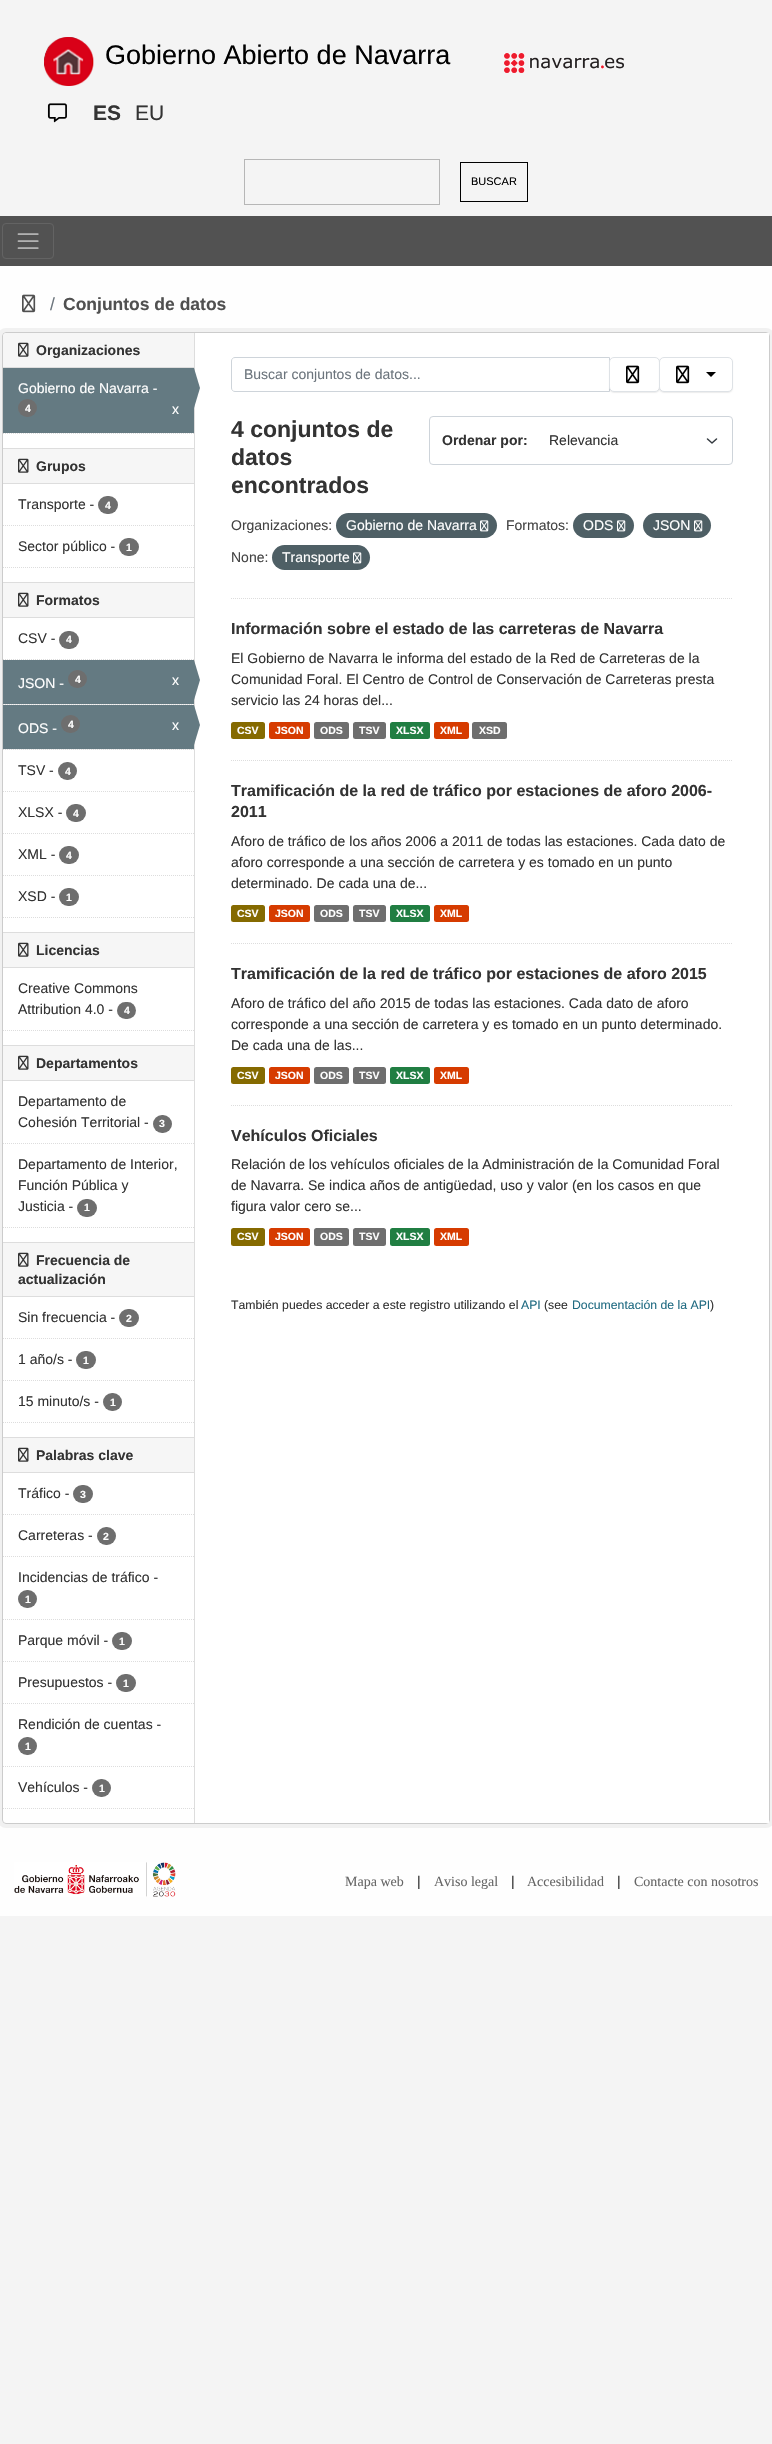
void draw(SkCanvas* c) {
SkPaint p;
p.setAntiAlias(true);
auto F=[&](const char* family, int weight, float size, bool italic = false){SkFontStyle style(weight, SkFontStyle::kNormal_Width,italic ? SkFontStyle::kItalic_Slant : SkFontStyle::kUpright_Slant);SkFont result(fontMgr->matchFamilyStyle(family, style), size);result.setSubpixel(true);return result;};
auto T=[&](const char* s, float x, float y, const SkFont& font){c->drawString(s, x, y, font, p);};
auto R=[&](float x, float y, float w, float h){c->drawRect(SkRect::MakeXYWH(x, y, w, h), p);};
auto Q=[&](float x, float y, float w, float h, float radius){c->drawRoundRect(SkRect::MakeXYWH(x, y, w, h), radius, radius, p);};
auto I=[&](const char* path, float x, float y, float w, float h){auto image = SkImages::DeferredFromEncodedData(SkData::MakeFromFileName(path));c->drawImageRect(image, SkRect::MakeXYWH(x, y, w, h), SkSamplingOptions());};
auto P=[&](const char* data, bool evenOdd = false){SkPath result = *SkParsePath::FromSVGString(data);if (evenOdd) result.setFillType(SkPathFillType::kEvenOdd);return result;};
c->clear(0xfff4f4f4);
I("1.png",44,37,50,49);
auto f1 = F("Liberation Sans",400,27);
p.setColor(0xff000000);
T("Gobierno Abierto de Navarra",105,64,f1);
I("2.png",504,53,120,20);
I("3.png",47,103,20,20);
auto f2 = F("Liberation Sans",700,21);
p.setColor(0xff333333);
T("ES",93,120,f2);
auto f3 = F("Liberation Sans",400,21);
T("EU",135,120,f3);
p.setStroke(true);
p.setStrokeWidth(1);
p.setColor(0xffb6b6b6);
c->drawRect(SkRect::MakeXYWH(244.5,159.5,195,45),p);
p.setColor(0xff000000);
c->drawRect(SkRect::MakeXYWH(460.5,162.5,67,39),p);
auto f4 = F("Liberation Sans",400,11);
p.setStroke(false);
T("BUSCAR",471,185,f4);
p.setColor(0xff525252);
R(0,216,772,50);
p.setStroke(true);
p.setColor(0xff636363);
c->drawRoundRect(SkRect::MakeXYWH(2.5,223.5,51,35),3.5,3.5,p);
I("4.png",17,233,22,16);
p.setStroke(false);
p.setColor(0xfffefefe);
R(0,266,772,1650);
I("5.png",22,294,14,19);
auto f5 = F("Liberation Sans",400,17.5);
p.setColor(0xff6c757d);
T("/",50,310,f5);
auto f6 = F("Liberation Sans",700,17.5);
p.setColor(0xff505050);
T("Conjuntos de datos",63,310,f6);
p.setStroke(true);
p.setStrokeWidth(4);
p.setColor(0xfff1f1f1);
c->drawRoundRect(SkRect::MakeXYWH(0,330,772,1496),6,6,p);
p.setStroke(false);
p.setColor(0xffffffff);
c->drawRoundRect(SkRect::MakeXYWH(2.5,332.5,767,1491),3.5,3.5,p);
p.setStroke(true);
p.setStrokeWidth(1);
p.setColor(0xffcccccc);
c->drawRoundRect(SkRect::MakeXYWH(2.5,332.5,767,1491),3.5,3.5,p);
p.setStroke(false);
p.setColor(0xfff6f6f6);
c->drawPath(P("M6 333h188v35h-191v-32c0-1.5 1.5-3 3-3z"),p);
p.setColor(0xffdddddd);
R(3,367,191,1);
I("6.png",18,342,11,15);
auto f7 = F("Liberation Sans",700,14);
p.setColor(0xff333333);
T("Organizaciones",36,355,f7);
p.setColor(0xff647a82);
R(3,368,191,65);
auto f8 = F("Liberation Sans",400,14);
p.setColor(0xffffffff);
T("Gobierno de Navarra -",18,393,f8);
p.setColor(0xffdddddd);
R(194,333,1,1490);
p.setColor(0xff647a82);
c->drawPath(P("M194 408v-40l6 20z"),p);
p.setColor(0xff6e6e6e);
Q(18,399,19,18,9);
auto f9 = F("Liberation Sans",700,10.5);
p.setColor(0xffffffff);
T("4",25,412,f9);
T("x",172,414,f8);
p.setStroke(true);
p.setColor(0xffdddddd);
p.setPathEffect(SkDashPathEffect::Make({{1,1}}, 0));
c->drawPath(P("M3 433.5h191"),p);
p.setPathEffect(nullptr);
p.setStroke(false);
p.setColor(0xfff6f6f6);
R(3,449,191,34);
p.setColor(0xffdddddd);
R(3,448,191,1);
R(3,483,191,1);
I("6.png",18,458,11,15);
p.setColor(0xff333333);
T("Grupos",36,471,f7);
p.setStroke(true);
p.setColor(0xffdddddd);
p.setPathEffect(SkDashPathEffect::Make({{1,1}}, 0));
c->drawPath(P("M3 525.5h191"),p);
p.setPathEffect(nullptr);
p.setStroke(false);
p.setColor(0xff333333);
T("Transporte -",18,509,f8);
p.setColor(0xff6e6e6e);
Q(98,496,20,18,9);
p.setColor(0xffffffff);
T("4",105,509,f9);
p.setColor(0xff333333);
T("Sector público -",18,551,f8);
p.setColor(0xff6e6e6e);
Q(119,538,20,18,9);
p.setColor(0xffffffff);
T("1",126,551,f9);
p.setStroke(true);
p.setColor(0xffdddddd);
p.setPathEffect(SkDashPathEffect::Make({{1,1}}, 0));
c->drawPath(P("M3 567.5h191"),p);
p.setPathEffect(nullptr);
p.setStroke(false);
p.setColor(0xfff6f6f6);
R(3,583,191,34);
p.setColor(0xffdddddd);
R(3,582,191,1);
R(3,617,191,1);
I("6.png",18,592,11,15);
p.setColor(0xff333333);
T("Formatos",36,605,f7);
p.setStroke(true);
p.setColor(0xffdddddd);
p.setPathEffect(SkDashPathEffect::Make({{1,1}}, 0));
c->drawPath(P("M3 659.5h191"),p);
p.setPathEffect(nullptr);
p.setStroke(false);
p.setColor(0xff333333);
T("CSV -",18,643,f8);
p.setColor(0xff6e6e6e);
Q(59,631,20,18,9);
p.setColor(0xffffffff);
T("4",66,643,f9);
p.setColor(0xfff6f6f6);
R(4,704,189,1);
p.setStroke(true);
p.setColor(0xffdddddd);
p.setPathEffect(SkDashPathEffect::Make({{1,1}}, 0));
c->drawPath(P("M3 704.5h191"),p);
p.setPathEffect(nullptr);
p.setStroke(false);
p.setColor(0xff647a82);
R(3,660,191,44);
p.setColor(0xffffffff);
T("JSON -",18,688,f8);
p.setColor(0xff6e6e6e);
Q(68,670,19,18,9);
p.setColor(0xffffffff);
T("4",75,683,f9);
T("x",172,685,f8);
p.setColor(0xff647a82);
c->drawPath(P("M194 700v-40l6 20z"),p);
p.setColor(0xfff6f6f6);
R(4,749,189,1);
p.setStroke(true);
p.setColor(0xffdddddd);
p.setPathEffect(SkDashPathEffect::Make({{1,1}}, 0));
c->drawPath(P("M3 749.5h191"),p);
p.setPathEffect(nullptr);
p.setStroke(false);
p.setColor(0xff647a82);
R(3,705,191,44);
p.setColor(0xffffffff);
T("ODS -",18,733,f8);
p.setColor(0xff6e6e6e);
Q(61,715,19,18,9);
p.setColor(0xffffffff);
T("4",68,728,f9);
T("x",172,730,f8);
p.setColor(0xff647a82);
c->drawPath(P("M194 745v-40l6 20z"),p);
p.setStroke(true);
p.setColor(0xffdddddd);
p.setPathEffect(SkDashPathEffect::Make({{1,1}}, 0));
c->drawPath(P("M3 791.5h191"),p);
p.setPathEffect(nullptr);
p.setStroke(false);
p.setColor(0xff333333);
T("TSV -",18,775,f8);
p.setColor(0xff6e6e6e);
Q(58,762,19,18,9);
p.setColor(0xffffffff);
T("4",65,775,f9);
p.setStroke(true);
p.setColor(0xffdddddd);
p.setPathEffect(SkDashPathEffect::Make({{1,1}}, 0));
c->drawPath(P("M3 833.5h191"),p);
p.setPathEffect(nullptr);
p.setStroke(false);
p.setColor(0xff333333);
T("XLSX -",18,817,f8);
p.setColor(0xff6e6e6e);
Q(66,804,20,18,9);
p.setColor(0xffffffff);
T("4",73,817,f9);
p.setStroke(true);
p.setColor(0xffdddddd);
p.setPathEffect(SkDashPathEffect::Make({{1,1}}, 0));
c->drawPath(P("M3 875.5h191"),p);
p.setPathEffect(nullptr);
p.setStroke(false);
p.setColor(0xff333333);
T("XML -",18,859,f8);
p.setColor(0xff6e6e6e);
Q(59,846,20,18,9);
p.setColor(0xffffffff);
T("4",66,859,f9);
p.setColor(0xff333333);
T("XSD -",18,901,f8);
p.setColor(0xff6e6e6e);
Q(59,888,20,18,9);
p.setColor(0xffffffff);
T("1",66,901,f9);
p.setStroke(true);
p.setColor(0xffdddddd);
p.setPathEffect(SkDashPathEffect::Make({{1,1}}, 0));
c->drawPath(P("M3 917.5h191"),p);
p.setPathEffect(nullptr);
p.setStroke(false);
p.setColor(0xfff6f6f6);
R(3,933,191,34);
p.setColor(0xffdddddd);
R(3,932,191,1);
R(3,967,191,1);
I("6.png",18,942,11,15);
p.setColor(0xff333333);
T("Licencias",36,955,f7);
T("Creative Commons",18,993,f8);
T("Attribution 4.0 -",18,1014,f8);
p.setColor(0xff6e6e6e);
Q(117,1002,19,17,8.5);
p.setColor(0xffffffff);
T("4",124,1014,f9);
p.setStroke(true);
p.setColor(0xffdddddd);
p.setPathEffect(SkDashPathEffect::Make({{1,1}}, 0));
c->drawPath(P("M3 1030.5h191"),p);
p.setPathEffect(nullptr);
p.setStroke(false);
p.setColor(0xfff6f6f6);
R(3,1046,191,34);
p.setColor(0xffdddddd);
R(3,1045,191,1);
R(3,1080,191,1);
I("6.png",18,1055,11,15);
p.setColor(0xff333333);
T("Departamentos",36,1068,f7);
p.setStroke(true);
p.setColor(0xffdddddd);
p.setPathEffect(SkDashPathEffect::Make({{1,1}}, 0));
c->drawPath(P("M3 1143.5h191"),p);
p.setPathEffect(nullptr);
p.setStroke(false);
p.setColor(0xff333333);
T("Departamento de",18,1106,f8);
T("Cohesión Territorial -",18,1127,f8);
p.setColor(0xff6e6e6e);
Q(153,1115,19,18,9);
p.setColor(0xffffffff);
T("3",159,1127,f9);
p.setColor(0xff333333);
T("Departamento de Interior,",18,1169,f8);
T("Función Pública y",18,1190,f8);
T("Justicia -",18,1211,f8);
p.setColor(0xff6e6e6e);
Q(77,1199,20,18,9);
p.setColor(0xffffffff);
T("1",84,1211,f9);
p.setStroke(true);
p.setColor(0xffdddddd);
p.setPathEffect(SkDashPathEffect::Make({{1,1}}, 0));
c->drawPath(P("M3 1227.5h191"),p);
p.setPathEffect(nullptr);
p.setStroke(false);
p.setColor(0xfff6f6f6);
R(3,1243,191,53);
p.setColor(0xffdddddd);
R(3,1242,191,1);
R(3,1296,191,1);
I("6.png",18,1252,11,15);
p.setColor(0xff333333);
T("Frecuencia de",36,1265,f7);
T("actualización",18,1284,f7);
p.setStroke(true);
p.setColor(0xffdddddd);
p.setPathEffect(SkDashPathEffect::Make({{1,1}}, 0));
c->drawPath(P("M3 1338.5h191"),p);
p.setPathEffect(nullptr);
p.setStroke(false);
p.setColor(0xff333333);
T("Sin frecuencia -",18,1322,f8);
p.setColor(0xff6e6e6e);
Q(119,1309,20,18,9);
p.setColor(0xffffffff);
T("2",126,1322,f9);
p.setStroke(true);
p.setColor(0xffdddddd);
p.setPathEffect(SkDashPathEffect::Make({{1,1}}, 0));
c->drawPath(P("M3 1380.5h191"),p);
p.setPathEffect(nullptr);
p.setStroke(false);
p.setColor(0xff333333);
T("1 año/s -",18,1364,f8);
p.setColor(0xff6e6e6e);
Q(76,1351,20,18,9);
p.setColor(0xffffffff);
T("1",83,1364,f9);
p.setColor(0xff333333);
T("15 minuto/s -",18,1406,f8);
p.setColor(0xff6e6e6e);
Q(103,1393,19,18,9);
p.setColor(0xffffffff);
T("1",110,1406,f9);
p.setStroke(true);
p.setColor(0xffdddddd);
p.setPathEffect(SkDashPathEffect::Make({{1,1}}, 0));
c->drawPath(P("M3 1422.5h191"),p);
p.setPathEffect(nullptr);
p.setStroke(false);
p.setColor(0xfff6f6f6);
R(3,1438,191,34);
p.setColor(0xffdddddd);
R(3,1437,191,1);
R(3,1472,191,1);
I("6.png",18,1447,11,15);
p.setColor(0xff333333);
T("Palabras clave",36,1460,f7);
p.setStroke(true);
p.setColor(0xffdddddd);
p.setPathEffect(SkDashPathEffect::Make({{1,1}}, 0));
c->drawPath(P("M3 1514.5h191"),p);
p.setPathEffect(nullptr);
p.setStroke(false);
p.setColor(0xff333333);
T("Tráfico -",18,1498,f8);
p.setColor(0xff6e6e6e);
Q(73,1485,20,18,9);
p.setColor(0xffffffff);
T("3",80,1498,f9);
p.setStroke(true);
p.setColor(0xffdddddd);
p.setPathEffect(SkDashPathEffect::Make({{1,1}}, 0));
c->drawPath(P("M3 1556.5h191"),p);
p.setPathEffect(nullptr);
p.setStroke(false);
p.setColor(0xff333333);
T("Carreteras -",18,1540,f8);
p.setColor(0xff6e6e6e);
Q(97,1527,19,18,9);
p.setColor(0xffffffff);
T("2",103,1540,f9);
p.setStroke(true);
p.setColor(0xffdddddd);
p.setPathEffect(SkDashPathEffect::Make({{1,1}}, 0));
c->drawPath(P("M3 1619.5h191"),p);
p.setPathEffect(nullptr);
p.setStroke(false);
p.setColor(0xff333333);
T("Incidencias de tráfico -",18,1582,f8);
p.setColor(0xff6e6e6e);
Q(18,1590,19,18,9);
p.setColor(0xffffffff);
T("1",25,1603,f9);
p.setStroke(true);
p.setColor(0xffdddddd);
p.setPathEffect(SkDashPathEffect::Make({{1,1}}, 0));
c->drawPath(P("M3 1661.5h191"),p);
p.setPathEffect(nullptr);
p.setStroke(false);
p.setColor(0xff333333);
T("Parque móvil -",18,1645,f8);
p.setColor(0xff6e6e6e);
Q(112,1632,20,18,9);
p.setColor(0xffffffff);
T("1",119,1645,f9);
p.setStroke(true);
p.setColor(0xffdddddd);
p.setPathEffect(SkDashPathEffect::Make({{1,1}}, 0));
c->drawPath(P("M3 1703.5h191"),p);
p.setPathEffect(nullptr);
p.setStroke(false);
p.setColor(0xff333333);
T("Presupuestos -",18,1687,f8);
p.setColor(0xff6e6e6e);
Q(116,1674,20,18,9);
p.setColor(0xffffffff);
T("1",123,1687,f9);
p.setStroke(true);
p.setColor(0xffdddddd);
p.setPathEffect(SkDashPathEffect::Make({{1,1}}, 0));
c->drawPath(P("M3 1766.5h191"),p);
p.setPathEffect(nullptr);
p.setStroke(false);
p.setColor(0xff333333);
T("Rendición de cuentas -",18,1729,f8);
p.setColor(0xff6e6e6e);
Q(18,1737,19,18,9);
p.setColor(0xffffffff);
T("1",25,1750,f9);
p.setColor(0xff333333);
T("Vehículos -",18,1792,f8);
p.setColor(0xff6e6e6e);
Q(92,1779,19,18,9);
p.setColor(0xffffffff);
T("1",99,1792,f9);
p.setStroke(true);
p.setColor(0xffdddddd);
p.setPathEffect(SkDashPathEffect::Make({{1,1}}, 0));
c->drawPath(P("M3 1808.5h191"),p);
p.setPathEffect(nullptr);
p.setStroke(false);
p.setColor(0xf2ffffff);
R(766,333,3,1490);
p.setStroke(true);
p.setColor(0xffdddddd);
p.setPathEffect(SkDashPathEffect::Make({{1,1}}, 0));
c->drawPath(P("M231 598.5h502"),p);
p.setPathEffect(nullptr);
p.setColor(0xffced4da);
c->drawPath(P("M235 357.5h374.5v34h-374.5c-2 0-3.5-1.5-3.5-3.5v-27c0-2 1.5-3.5 3.5-3.5z"),p);
p.setStroke(false);
p.setColor(0xff6c757d);
T("Buscar conjuntos de datos...",244,379,f8);
p.setColor(0x12000000);
p.setMaskFilter(SkMaskFilter::MakeBlur(kNormal_SkBlurStyle, .5));
c->drawRoundRect(SkRect::MakeXYWH(609,358,51,35),5,5,p);
p.setMaskFilter(nullptr);
p.setColor(0xffffffff);
c->drawRoundRect(SkRect::MakeXYWH(609.5,357.5,50,34),4.5,4.5,p);
p.setStroke(true);
p.setColor(0xffdee2e6);
c->drawRoundRect(SkRect::MakeXYWH(609.5,357.5,50,34),4.5,4.5,p);
I("7.png",626,365,14,19);
p.setStroke(false);
p.setColor(0x12000000);
p.setMaskFilter(SkMaskFilter::MakeBlur(kNormal_SkBlurStyle, .5));
c->drawRoundRect(SkRect::MakeXYWH(659,358,74,35),5,5,p);
p.setMaskFilter(nullptr);
p.setColor(0xffffffff);
c->drawRoundRect(SkRect::MakeXYWH(659.5,357.5,73,34),4.5,4.5,p);
p.setStroke(true);
p.setColor(0xffdee2e6);
c->drawRoundRect(SkRect::MakeXYWH(659.5,357.5,73,34),4.5,4.5,p);
I("7.png",676,365,14,19);
p.setStroke(false);
p.setColor(0xff000000);
c->drawPath(P("M706 372h10l-5 5z"),p);
auto f10 = F("Liberation Sans",700,23);
p.setColor(0xff333333);
T("4 conjuntos de",231,437,f10);
T("datos",231,465,f10);
T("encontrados",231,493,f10);
p.setStroke(true);
p.setStrokeWidth(1.5);
p.setStrokeCap(SkPaint::kRound_Cap);
p.setStrokeJoin(SkPaint::kRound_Join);
p.setColor(0xff343a40);
c->drawPath(P("M707.5 439l4.5 4l4.5-4"),p);
p.setStrokeWidth(1);
p.setStrokeCap(SkPaint::kButt_Cap);
p.setStrokeJoin(SkPaint::kMiter_Join);
p.setColor(0xffced4da);
c->drawRoundRect(SkRect::MakeXYWH(429.5,416.5,303,48),3.5,3.5,p);
p.setStroke(false);
p.setColor(0xff333333);
T("Ordenar por:",442,445,f7);
T("Relevancia",549,445,f8);
p.setColor(0xff444444);
T("Organizaciones:",231,530,f8);
p.setColor(0xff4e5f65);
Q(336,513,161,25,12.5);
p.setColor(0xffffffff);
T("Gobierno de Navarra",346,530,f8);
I("8.png",480,520,9,12);
p.setColor(0xff444444);
T("Formatos:",506,530,f8);
p.setColor(0xff4e5f65);
Q(573,513,61,25,12.5);
p.setColor(0xffffffff);
T("ODS",583,530,f8);
I("8.png",617,520,9,12);
p.setColor(0xff4e5f65);
Q(643,513,68,25,12.5);
p.setColor(0xffffffff);
T("JSON",653,530,f8);
I("8.png",694,520,9,12);
p.setColor(0xff444444);
T("None:",231,562,f8);
p.setColor(0xff4e5f65);
Q(272,545,98,25,12.5);
p.setColor(0xffffffff);
T("Transporte",282,562,f8);
I("8.png",353,552,9,12);
p.setStroke(true);
p.setColor(0xffdddddd);
p.setPathEffect(SkDashPathEffect::Make({{1,1}}, 0));
c->drawPath(P("M231 760.5h502"),p);
p.setPathEffect(nullptr);
auto f11 = F("Liberation Sans",700,16);
p.setStroke(false);
p.setColor(0xff333333);
T("Información sobre el estado de las carreteras de Navarra",231,634,f11);
T("El Gobierno de Navarra le informa del estado de la Red de Carreteras de la",231,663,f8);
T("Comunidad Foral. El Centro de Control de Conservación de Carreteras presta",231,684,f8);
T("servicio las 24 horas del...",231,705,f8);
p.setColor(0xff856a00);
Q(231,722,34,17,2.5);
p.setColor(0xffffffff);
T("CSV",237,734,f9);
p.setColor(0xffd63b00);
Q(269,722,41,17,2.5);
p.setColor(0xffffffff);
T("JSON",275,734,f9);
p.setColor(0xff6e6e6e);
Q(314,722,35,17,2.5);
p.setColor(0xffffffff);
T("ODS",320,734,f9);
p.setColor(0xff6e6e6e);
Q(353,722,33,17,2.5);
p.setColor(0xffffffff);
T("TSV",359,734,f9);
p.setColor(0xff207e42);
Q(390,722,40,17,2.5);
p.setColor(0xffffffff);
T("XLSX",396,734,f9);
p.setColor(0xffd63b00);
Q(434,722,35,17,2.5);
p.setColor(0xffffffff);
T("XML",440,734,f9);
p.setColor(0xff6e6e6e);
Q(472,722,35,17,2.5);
p.setColor(0xffffffff);
T("XSD",479,734,f9);
p.setStroke(true);
p.setColor(0xffdddddd);
p.setPathEffect(SkDashPathEffect::Make({{1,1}}, 0));
c->drawPath(P("M231 943.5h502"),p);
p.setPathEffect(nullptr);
p.setStroke(false);
p.setColor(0xff333333);
T("Tramificación de la red de tráfico por estaciones de aforo 2006-",231,796,f11);
T("2011",231,817,f11);
T("Aforo de tráfico de los años 2006 a 2011 de todas las estaciones. Cada dato de",231,846,f8);
T("aforo corresponde a una sección de carretera y es tomado en un punto",231,867,f8);
T("determinado. De cada una de...",231,888,f8);
p.setColor(0xff856a00);
Q(231,905,34,17,2.5);
p.setColor(0xffffffff);
T("CSV",237,917,f9);
p.setColor(0xffd63b00);
Q(269,905,41,17,2.5);
p.setColor(0xffffffff);
T("JSON",275,917,f9);
p.setColor(0xff6e6e6e);
Q(314,905,35,17,2.5);
p.setColor(0xffffffff);
T("ODS",320,917,f9);
p.setColor(0xff6e6e6e);
Q(353,905,33,17,2.5);
p.setColor(0xffffffff);
T("TSV",359,917,f9);
p.setColor(0xff207e42);
Q(390,905,40,17,2.5);
p.setColor(0xffffffff);
T("XLSX",396,917,f9);
p.setColor(0xffd63b00);
Q(434,905,35,17,2.5);
p.setColor(0xffffffff);
T("XML",440,917,f9);
p.setStroke(true);
p.setColor(0xffdddddd);
p.setPathEffect(SkDashPathEffect::Make({{1,1}}, 0));
c->drawPath(P("M231 1105.5h502"),p);
p.setPathEffect(nullptr);
p.setStroke(false);
p.setColor(0xff333333);
T("Tramificación de la red de tráfico por estaciones de aforo 2015",231,979,f11);
T("Aforo de tráfico del año 2015 de todas las estaciones. Cada dato de aforo",231,1008,f8);
T("corresponde a una sección de carretera y es tomado en un punto determinado.",231,1029,f8);
T("De cada una de las...",231,1050,f8);
p.setColor(0xff856a00);
Q(231,1067,34,17,2.5);
p.setColor(0xffffffff);
T("CSV",237,1079,f9);
p.setColor(0xffd63b00);
Q(269,1067,41,17,2.5);
p.setColor(0xffffffff);
T("JSON",275,1079,f9);
p.setColor(0xff6e6e6e);
Q(314,1067,35,17,2.5);
p.setColor(0xffffffff);
T("ODS",320,1079,f9);
p.setColor(0xff6e6e6e);
Q(353,1067,33,17,2.5);
p.setColor(0xffffffff);
T("TSV",359,1079,f9);
p.setColor(0xff207e42);
Q(390,1067,40,17,2.5);
p.setColor(0xffffffff);
T("XLSX",396,1079,f9);
p.setColor(0xffd63b00);
Q(434,1067,35,17,2.5);
p.setColor(0xffffffff);
T("XML",440,1079,f9);
p.setColor(0xff333333);
T("Vehículos Oficiales",231,1141,f11);
T("Relación de los vehículos oficiales de la Administración de la Comunidad Foral",231,1169,f8);
T("de Navarra. Se indica años de antigüedad, uso y valor (en los casos en que",231,1190,f8);
T("figura valor cero se...",231,1211,f8);
p.setColor(0xff856a00);
Q(231,1228,34,18,2.5);
p.setColor(0xffffffff);
T("CSV",237,1240,f9);
p.setColor(0xffd63b00);
Q(269,1228,41,18,2.5);
p.setColor(0xffffffff);
T("JSON",275,1240,f9);
p.setColor(0xff6e6e6e);
Q(314,1228,35,18,2.5);
p.setColor(0xffffffff);
T("ODS",320,1240,f9);
p.setColor(0xff6e6e6e);
Q(353,1228,33,18,2.5);
p.setColor(0xffffffff);
T("TSV",359,1240,f9);
p.setColor(0xff207e42);
Q(390,1228,40,18,2.5);
p.setColor(0xffffffff);
T("XLSX",396,1240,f9);
p.setColor(0xffd63b00);
Q(434,1228,35,18,2.5);
p.setColor(0xffffffff);
T("XML",440,1240,f9);
auto f12 = F("Liberation Sans",400,12.25);
p.setColor(0xff333333);
T("También puedes acceder a este registro utilizando el",231,1309,f12);
p.setColor(0xff206b82);
T("API",521,1309,f12);
p.setColor(0xff333333);
T("(see",544,1309,f12);
p.setColor(0xff206b82);
T("Documentación de la API",572,1309,f12);
p.setColor(0xff333333);
T(")",710,1309,f12);
I("9.png",14,1862,162,35);
auto f13 = F("Liberation Serif",400,14);
p.setColor(0xff666666);
T("Mapa web",345,1886,f13);
p.setColor(0xff333333);
T("|",417,1886,f8);
p.setColor(0xff666666);
T("Aviso legal",434,1886,f13);
p.setColor(0xff333333);
T("|",511,1886,f8);
p.setColor(0xff666666);
T("Accesibilidad",527,1886,f13);
p.setColor(0xff333333);
T("|",617,1886,f8);
p.setColor(0xff666666);
T("Contacte con nosotros",634,1886,f13);
}
